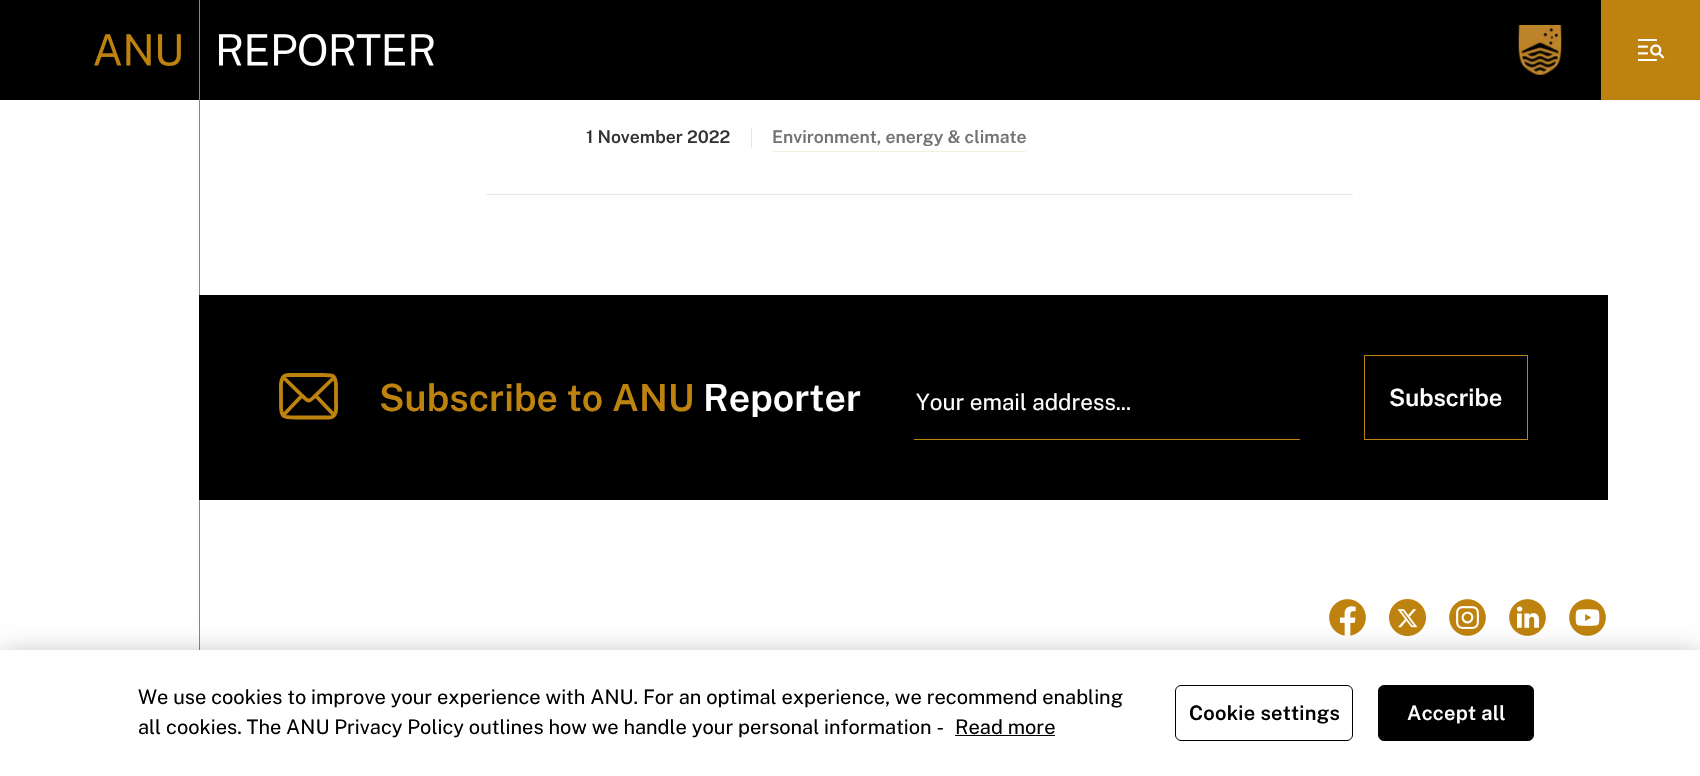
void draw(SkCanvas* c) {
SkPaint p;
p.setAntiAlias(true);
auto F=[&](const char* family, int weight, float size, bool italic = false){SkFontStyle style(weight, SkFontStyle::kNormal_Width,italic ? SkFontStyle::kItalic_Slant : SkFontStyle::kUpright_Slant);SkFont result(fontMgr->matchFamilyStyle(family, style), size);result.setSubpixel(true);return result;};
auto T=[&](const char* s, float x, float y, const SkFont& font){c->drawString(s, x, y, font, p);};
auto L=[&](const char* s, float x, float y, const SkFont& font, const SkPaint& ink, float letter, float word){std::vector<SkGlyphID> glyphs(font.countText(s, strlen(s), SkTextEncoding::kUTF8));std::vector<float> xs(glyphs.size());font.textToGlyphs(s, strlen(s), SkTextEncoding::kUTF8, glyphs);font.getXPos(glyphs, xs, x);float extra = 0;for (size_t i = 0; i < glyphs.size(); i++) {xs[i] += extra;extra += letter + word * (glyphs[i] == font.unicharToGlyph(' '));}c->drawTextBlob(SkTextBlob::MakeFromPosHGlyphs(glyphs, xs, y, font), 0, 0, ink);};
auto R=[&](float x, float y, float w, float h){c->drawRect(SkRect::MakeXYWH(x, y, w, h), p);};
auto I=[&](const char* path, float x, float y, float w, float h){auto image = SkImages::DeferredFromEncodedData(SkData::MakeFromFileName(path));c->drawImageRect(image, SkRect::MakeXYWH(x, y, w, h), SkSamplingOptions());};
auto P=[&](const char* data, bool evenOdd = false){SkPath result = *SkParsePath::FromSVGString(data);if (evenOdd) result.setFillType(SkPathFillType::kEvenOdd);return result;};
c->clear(0xffffffff);
p.setColor(0xff000000);
R(0,0,1601,100);
p.setColor(0xffbe830e);
R(199,0,1,100);
I("1.png",94,34,340,32);
I("2.png",1518,25,44,50);
R(1601,0,99,100);
I("3.png",1638,39,27,22);
R(199,100,1,550);
auto f1 = F("Public Sans",600,17.5);
p.setColor(0xff333333);
T("1 November 2022",586,143,f1);
p.setColor(0xffe6e6e6);
R(751,128,1,20);
p.setColor(0xfff5edde);
R(773,151,253,1);
p.setColor(0xff737373);
T("Environment, energy & climate",772,143,f1);
p.setColor(0xffe6e6e6);
R(486,194,867,1);
p.setColor(0xff000000);
R(199,295,1409,205);
p.setStroke(true);
p.setStrokeWidth(3.8);
p.setStrokeCap(SkPaint::kRound_Cap);
p.setStrokeJoin(SkPaint::kRound_Join);
p.setColor(0xffbe830e);
c->drawPath(P("M315.5 395.5l18.5 19.5m-50.5 0l18.5-19.5m32-18l-18.5 18c-7 7-7 6.5-13.5 0l-18.5-18m5-2.5h34c11.5 0 13.5 0 13.5 12v14c0 5.5 2 16.5-7 16.5h-34c-11.5 0-14 0-14-12v-14c0-5.5-1.5-16.5 7.5-16.5z"),p);
auto f2 = F("Public Sans",600,37.5);
p.setStroke(false);
T("Subscribe to ANU",379,411,f2);
p.setColor(0xffffffff);
T("Reporter",703,411,f2);
p.setColor(0xffbe830e);
R(914,439,386,1);
auto f3 = F("Public Sans",400,22.5);
p.setColor(0xffffffff);
T("Your email address...",916,410,f3);
p.setStroke(true);
p.setStrokeWidth(1);
p.setStrokeCap(SkPaint::kButt_Cap);
p.setStrokeJoin(SkPaint::kMiter_Join);
p.setColor(0xffbe830e);
c->drawRect(SkRect::MakeXYWH(1364.5,355.5,163,84),p);
auto f4 = F("Public Sans",600,23.75);
p.setStroke(false);
p.setColor(0xffffffff);
T("Subscribe",1389,406,f4);
I("4.png",1329,599,37,37);
I("5.png",1389,599,37,37);
I("6.png",1449,599,37,37);
I("7.png",1509,599,37,37);
I("8.png",1569,599,37,37);
p.setColor(0x33000000);
p.setMaskFilter(SkMaskFilter::MakeBlur(kNormal_SkBlurStyle, 11));
c->drawRect(SkRect::MakeXYWH(0,650,1700,126),p);
p.setMaskFilter(nullptr);
p.setColor(0xffffffff);
R(0,650,1700,126);
auto f5 = F("Public Sans",400,20);
p.setColor(0xff000000);
T("We use cookies to improve your experience with ANU. For an optimal experience, we recommend enabling",138,704,f5);
T("all cookies. The ANU Privacy Policy outlines how we handle your personal information -",138,734,f5);
T("Read more",955,734,f5);
R(955,735,100,1);
p.setStroke(true);
c->drawRoundRect(SkRect::MakeXYWH(1175.5,685.5,177,55),5.5,5.5,p);
auto f6 = F("Public Sans",600,20);
p.setStroke(false);
L("Cookie settings",1189,720,f6,p,.25,0);
c->drawRoundRect(SkRect::MakeXYWH(1378.5,685.5,155,55),5.5,5.5,p);
p.setStroke(true);
c->drawRoundRect(SkRect::MakeXYWH(1378.5,685.5,155,55),5.5,5.5,p);
p.setStroke(false);
p.setColor(0xffffffff);
L("Accept all",1407,720,f6,p,.25,0);
}
